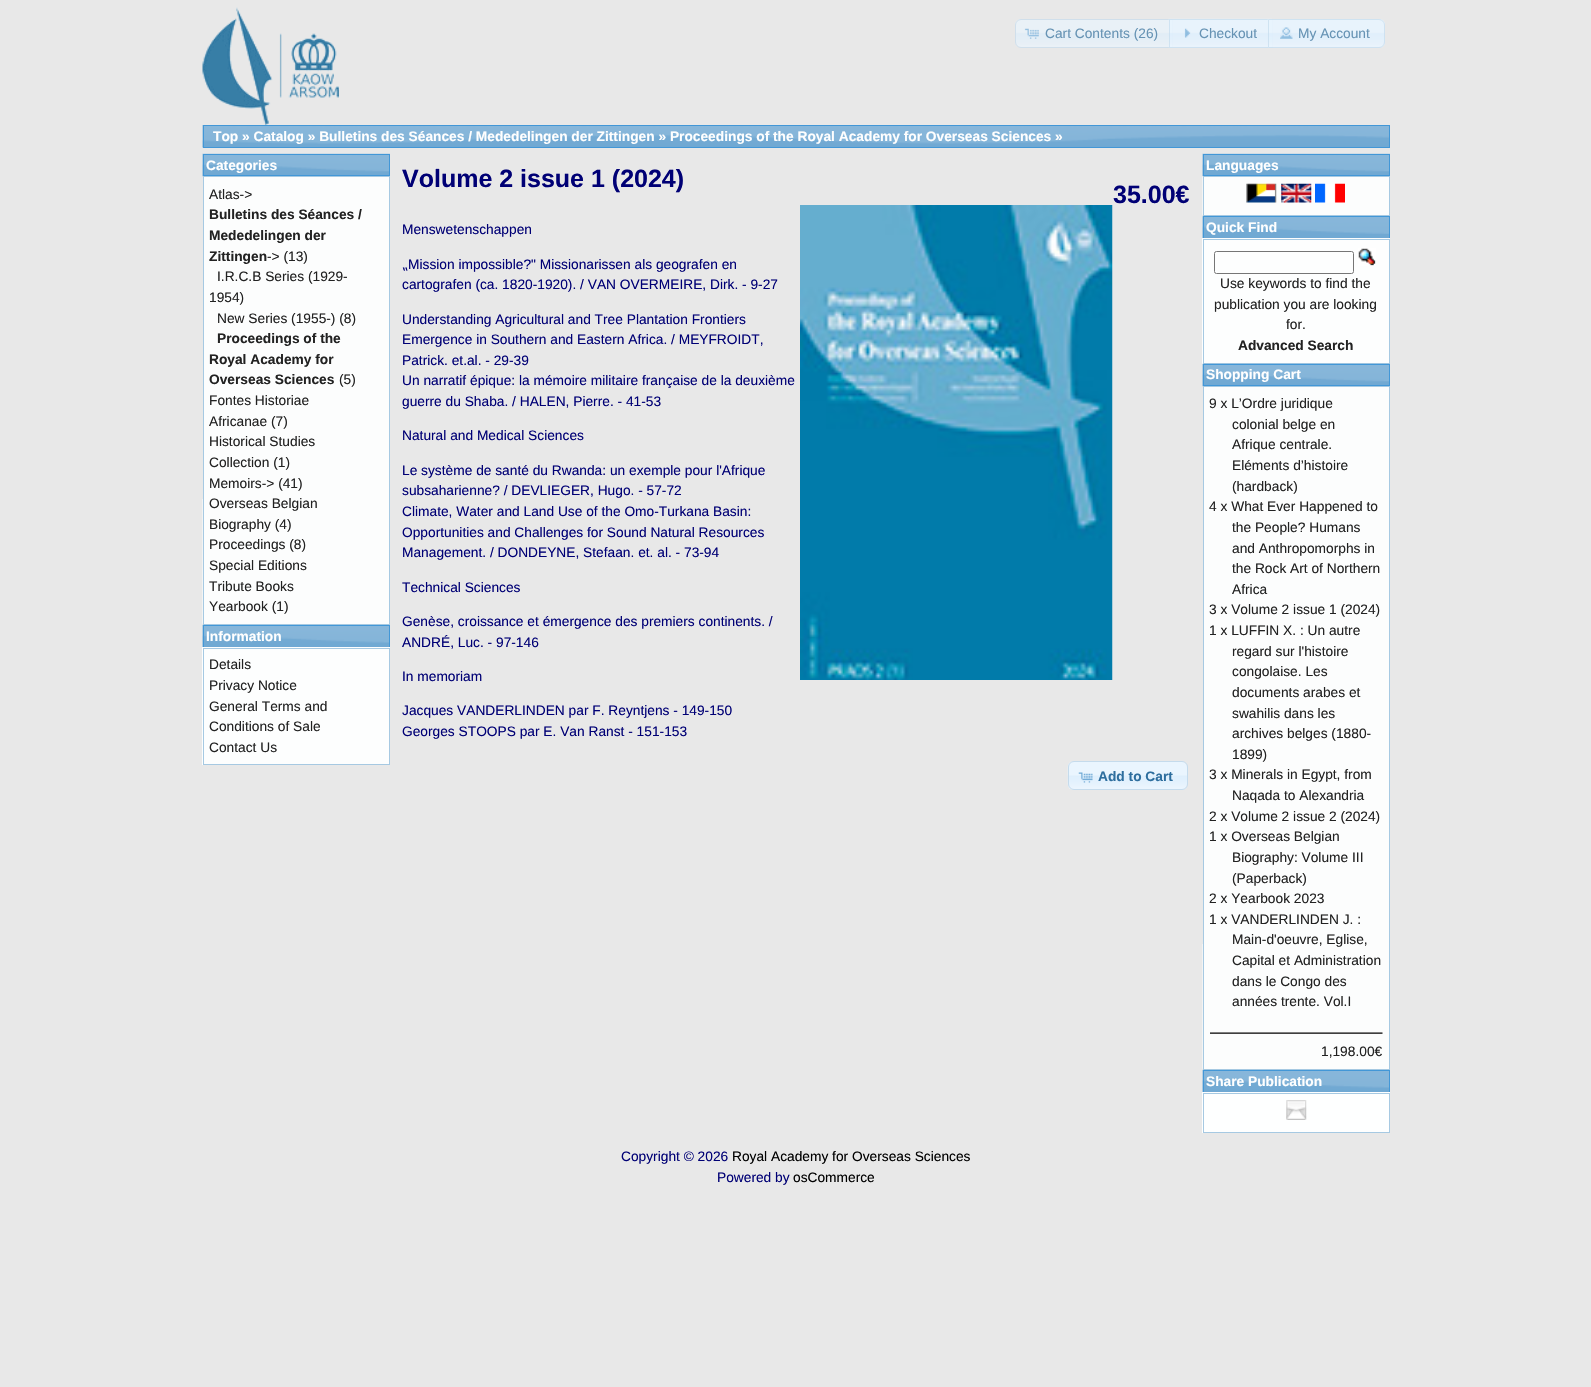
void draw(SkCanvas* c) {
SkPaint p;
p.setAntiAlias(true);
auto F=[&](const char* family, int weight, float size, bool italic = false){SkFontStyle style(weight, SkFontStyle::kNormal_Width,italic ? SkFontStyle::kItalic_Slant : SkFontStyle::kUpright_Slant);SkFont result(fontMgr->matchFamilyStyle(family, style), size);result.setSubpixel(true);return result;};
auto T=[&](const char* s, float x, float y, const SkFont& font){c->drawString(s, x, y, font, p);};
auto R=[&](float x, float y, float w, float h){c->drawRect(SkRect::MakeXYWH(x, y, w, h), p);};
auto I=[&](const char* path, float x, float y, float w, float h){auto image = SkImages::DeferredFromEncodedData(SkData::MakeFromFileName(path));c->drawImageRect(image, SkRect::MakeXYWH(x, y, w, h), SkSamplingOptions());};
auto P=[&](const char* data, bool evenOdd = false){SkPath result = *SkParsePath::FromSVGString(data);if (evenOdd) result.setFillType(SkPathFillType::kEvenOdd);return result;};
c->clear(0xffe8e8e8);
I("1.png",202,7,137,118);
I("2.png",1015,19,157,28);
p.setStroke(true);
p.setStrokeWidth(1);
p.setColor(0xffd0dfeb);
c->drawPath(P("M1021 19.5h151.5v28h-151.5c-3 0-5.5-2.5-5.5-5.5v-17c0-3 2.5-5.5 5.5-5.5z"),p);
I("3.png",1024,28,15,11);
auto f1 = F("Liberation Sans",400,13.75);
p.setStroke(false);
p.setColor(0xff6693b4);
T("Cart Contents (26)",1045,38,f1);
p.setColor(0xb3dfeffc);
R(1169,19,104,29);
I("4.png",1168,18,104,30);
p.setStroke(true);
p.setColor(0xb3c5dbec);
c->drawRect(SkRect::MakeXYWH(1169.5,19.5,103,28),p);
I("5.png",1184,28,7,10);
p.setStroke(false);
p.setColor(0xff6693b4);
T("Checkout",1199,38,f1);
p.setColor(0xb3dfeffc);
c->drawPath(P("M1268 19h111c3.5 0 6 2.5 6 6v17c0 3.5-2.5 6-6 6h-111z"),p);
I("6.png",1267,19,118,28);
p.setStroke(true);
p.setColor(0xb3c5dbec);
c->drawPath(P("M1268.5 19.5h110.5c3 0 5.5 2.5 5.5 5.5v17c0 3-2.5 5.5-5.5 5.5h-110.5z"),p);
I("7.png",1280,27,13,12);
p.setStroke(false);
p.setColor(0xff6693b4);
T("My Account",1298,38,f1);
I("8.png",202,125,1187,23);
p.setStroke(true);
p.setColor(0xff4297d7);
c->drawRect(SkRect::MakeXYWH(203.5,125.5,1186,22),p);
auto f2 = F("Liberation Sans",700,13.75);
p.setStroke(false);
p.setColor(0xffffffff);
T("Top » Catalog » Bulletins des Séances / Mededelingen der Zittingen » Proceedings of the Royal Academy for Overseas Sciences »",213,141,f2);
I("9.png",202,153,188,24);
p.setStroke(true);
p.setColor(0xff4297d7);
c->drawRect(SkRect::MakeXYWH(203.5,154.5,186,21),p);
p.setStroke(false);
p.setColor(0xffffffff);
T("Categories",206,170,f2);
p.setColor(0xfffcfdfd);
c->drawRect(SkRect::MakeXYWH(203.5,176.5,186,448),p);
p.setStroke(true);
p.setColor(0xffa6c9e2);
c->drawRect(SkRect::MakeXYWH(203.5,176.5,186,448),p);
I("10.png",202,499,1,125);
p.setStroke(false);
p.setColor(0xff222222);
T("Atlas->",209,199,f1);
T("Bulletins des Séances /",209,219,f2);
T("Mededelingen der",209,240,f2);
T("Zittingen",209,261,f2);
T("-> (13)",267,261,f1);
T("I.R.C.B Series (1929-",217,281,f1);
T("1954)",209,302,f1);
T("New Series (1955-) (8)",217,323,f1);
T("Proceedings of the",217,343,f2);
T("Royal Academy for",209,364,f2);
T("Overseas Sciences",209,384,f2);
T("(5)",339,384,f1);
T("Fontes Historiae",209,405,f1);
T("Africanae (7)",209,426,f1);
T("Historical Studies",209,446,f1);
T("Collection (1)",209,467,f1);
T("Memoirs-> (41)",209,488,f1);
T("Overseas Belgian",209,508,f1);
T("Biography (4)",209,529,f1);
T("Proceedings (8)",209,549,f1);
T("Special Editions",209,570,f1);
T("Tribute Books",209,591,f1);
T("Yearbook (1)",209,611,f1);
I("11.png",202,625,187,22);
p.setStroke(true);
p.setColor(0xff4297d7);
c->drawRect(SkRect::MakeXYWH(203.5,625.5,186,22),p);
p.setStroke(false);
p.setColor(0xffffffff);
T("Information",206,641,f2);
p.setColor(0xfffdfefe);
R(202,647,188,118);
p.setStroke(true);
p.setColor(0xffa6c9e2);
c->drawRect(SkRect::MakeXYWH(203.5,648.5,186,116),p);
p.setStroke(false);
p.setColor(0xff222222);
T("Details",209,669,f1);
T("Privacy Notice",209,690,f1);
T("General Terms and",209,711,f1);
T("Conditions of Sale",209,731,f1);
T("Contact Us",209,752,f1);
auto f3 = F("Liberation Sans",700,25);
p.setColor(0xff000075);
T("Volume 2 issue 1 (2024)",402,187,f3);
T("35.00€",1113,203,f3);
T("Menswetenschappen",402,234,f1);
I("12.png",800,205,313,475);
auto f4 = F("Noto Sans",400,13.75);
T("⹂",402,269,f4);
T("Mission impossible?\" Missionarissen als geografen en",408,269,f1);
T("cartografen (ca. 1820-1920). / VAN OVERMEIRE, Dirk. - 9-27",402,289,f1);
T("Understanding Agricultural and Tree Plantation Frontiers",402,324,f1);
T("Emergence in Southern and Eastern Africa. / MEYFROIDT,",402,344,f1);
T("Patrick. et.al. - 29-39",402,365,f1);
T("Un narratif épique: la mémoire militaire française de la deuxième",402,385,f1);
T("guerre du Shaba. / HALEN, Pierre. - 41-53",402,406,f1);
T("Natural and Medical Sciences",402,440,f1);
T("Le système de santé du Rwanda: un exemple pour l'Afrique",402,475,f1);
T("subsaharienne? / DEVLIEGER, Hugo. - 57-72",402,495,f1);
T("Climate, Water and Land Use of the Omo-Turkana Basin:",402,516,f1);
T("Opportunities and Challenges for Sound Natural Resources",402,537,f1);
T("Management. / DONDEYNE, Stefaan. et. al. - 73-94",402,557,f1);
T("Technical Sciences",402,592,f1);
T("Genèse, croissance et émergence des premiers continents. /",402,626,f1);
T("ANDRÉ, Luc. - 97-146",402,647,f1);
T("In memoriam",402,681,f1);
T("Jacques VANDERLINDEN par F. Reyntjens - 149-150",402,715,f1);
T("Georges STOOPS par E. Van Ranst - 151-153",402,736,f1);
I("13.png",1067,761,120,29);
p.setStroke(true);
p.setColor(0xffc5dbec);
c->drawRoundRect(SkRect::MakeXYWH(1068.5,761.5,119,28),5.5,5.5,p);
I("14.png",1078,772,15,11);
p.setStroke(false);
p.setColor(0xff2e6e9e);
T("Add to Cart",1098,781,f2);
I("9.png",1202,153,188,24);
p.setStroke(true);
p.setColor(0xff4297d7);
c->drawRect(SkRect::MakeXYWH(1203.5,154.5,186,21),p);
p.setStroke(false);
p.setColor(0xffffffff);
T("Languages",1206,170,f2);
p.setColor(0xfffcfdfd);
c->drawRect(SkRect::MakeXYWH(1203.5,176.5,186,39),p);
p.setStroke(true);
p.setColor(0xffa6c9e2);
c->drawRect(SkRect::MakeXYWH(1203.5,176.5,186,39),p);
I("15.png",1202,176,1,39);
I("16.png",1246,183,31,20);
I("17.png",1281,183,31,20);
I("18.png",1315,183,30,20);
I("19.png",1202,216,187,22);
p.setColor(0xff4297d7);
c->drawRect(SkRect::MakeXYWH(1203.5,216.5,186,22),p);
p.setStroke(false);
p.setColor(0xffffffff);
T("Quick Find",1206,232,f2);
p.setColor(0xfffdfefe);
R(1202,238,188,126);
p.setStroke(true);
p.setColor(0xffa6c9e2);
c->drawRect(SkRect::MakeXYWH(1203.5,239.5,186,124),p);
p.setColor(0xff767676);
c->drawRoundRect(SkRect::MakeXYWH(1214.5,251.5,139,22),2,2,p);
I("20.png",1358,248,18,18);
p.setStroke(false);
p.setColor(0xff222222);
T("Use keywords to find the",1220,288,f1);
T("publication you are looking",1214,309,f1);
T("for.",1286,329,f1);
T("Advanced Search",1238,350,f2);
I("21.png",1202,363,188,24);
p.setStroke(true);
p.setColor(0xff4297d7);
c->drawRect(SkRect::MakeXYWH(1203.5,364.5,186,21),p);
p.setStroke(false);
p.setColor(0xffffffff);
T("Shopping Cart",1206,379,f2);
p.setColor(0xfffcfdfd);
c->drawRect(SkRect::MakeXYWH(1203.5,386.5,186,683),p);
p.setStroke(true);
p.setColor(0xffa6c9e2);
c->drawRect(SkRect::MakeXYWH(1203.5,386.5,186,683),p);
I("10.png",1202,944,1,125);
p.setStroke(false);
p.setColor(0xff222222);
T("9 x L’Ordre juridique",1209,408,f1);
T("colonial belge en",1232,429,f1);
T("Afrique centrale.",1232,449,f1);
T("Eléments d’histoire",1232,470,f1);
T("(hardback)",1232,491,f1);
T("4 x What Ever Happened to",1209,511,f1);
T("the People? Humans",1232,532,f1);
T("and Anthropomorphs in",1232,553,f1);
T("the Rock Art of Northern",1232,573,f1);
T("Africa",1232,594,f1);
T("3 x Volume 2 issue 1 (2024)",1209,614,f1);
T("1 x LUFFIN X. : Un autre",1209,635,f1);
T("regard sur l'histoire",1232,656,f1);
T("congolaise. Les",1232,676,f1);
T("documents arabes et",1232,697,f1);
T("swahilis dans les",1232,718,f1);
T("archives belges (1880-",1232,738,f1);
T("1899)",1232,759,f1);
T("3 x Minerals in Egypt, from",1209,779,f1);
T("Naqada to Alexandria",1232,800,f1);
T("2 x Volume 2 issue 2 (2024)",1209,821,f1);
T("1 x Overseas Belgian",1209,841,f1);
T("Biography: Volume III",1232,862,f1);
T("(Paperback)",1232,883,f1);
T("2 x Yearbook 2023",1209,903,f1);
T("1 x VANDERLINDEN J. :",1209,924,f1);
T("Main-d'oeuvre, Eglise,",1232,944,f1);
T("Capital et Administration",1232,965,f1);
T("dans le Congo des",1232,986,f1);
T("années trente. Vol.I",1232,1006,f1);
I("22.png",1210,1032,173,2);
T("1,198.00€",1321,1056,f1);
I("11.png",1202,1070,187,22);
p.setStroke(true);
p.setColor(0xff4297d7);
c->drawRect(SkRect::MakeXYWH(1203.5,1070.5,186,22),p);
p.setStroke(false);
p.setColor(0xffffffff);
T("Share Publication",1206,1086,f2);
p.setColor(0xfffeffff);
R(1202,1092,188,41);
p.setStroke(true);
p.setColor(0xffa6c9e2);
c->drawRect(SkRect::MakeXYWH(1203.5,1093.5,186,39),p);
I("23.png",1286,1100,21,20);
p.setStroke(false);
p.setColor(0xff000075);
T("Copyright © 2026",621,1161,f1);
p.setColor(0xff000000);
T("Royal Academy for Overseas Sciences",732,1161,f1);
p.setColor(0xff000075);
T("Powered by",717,1182,f1);
p.setColor(0xff000000);
T("osCommerce",793,1182,f1);
}
